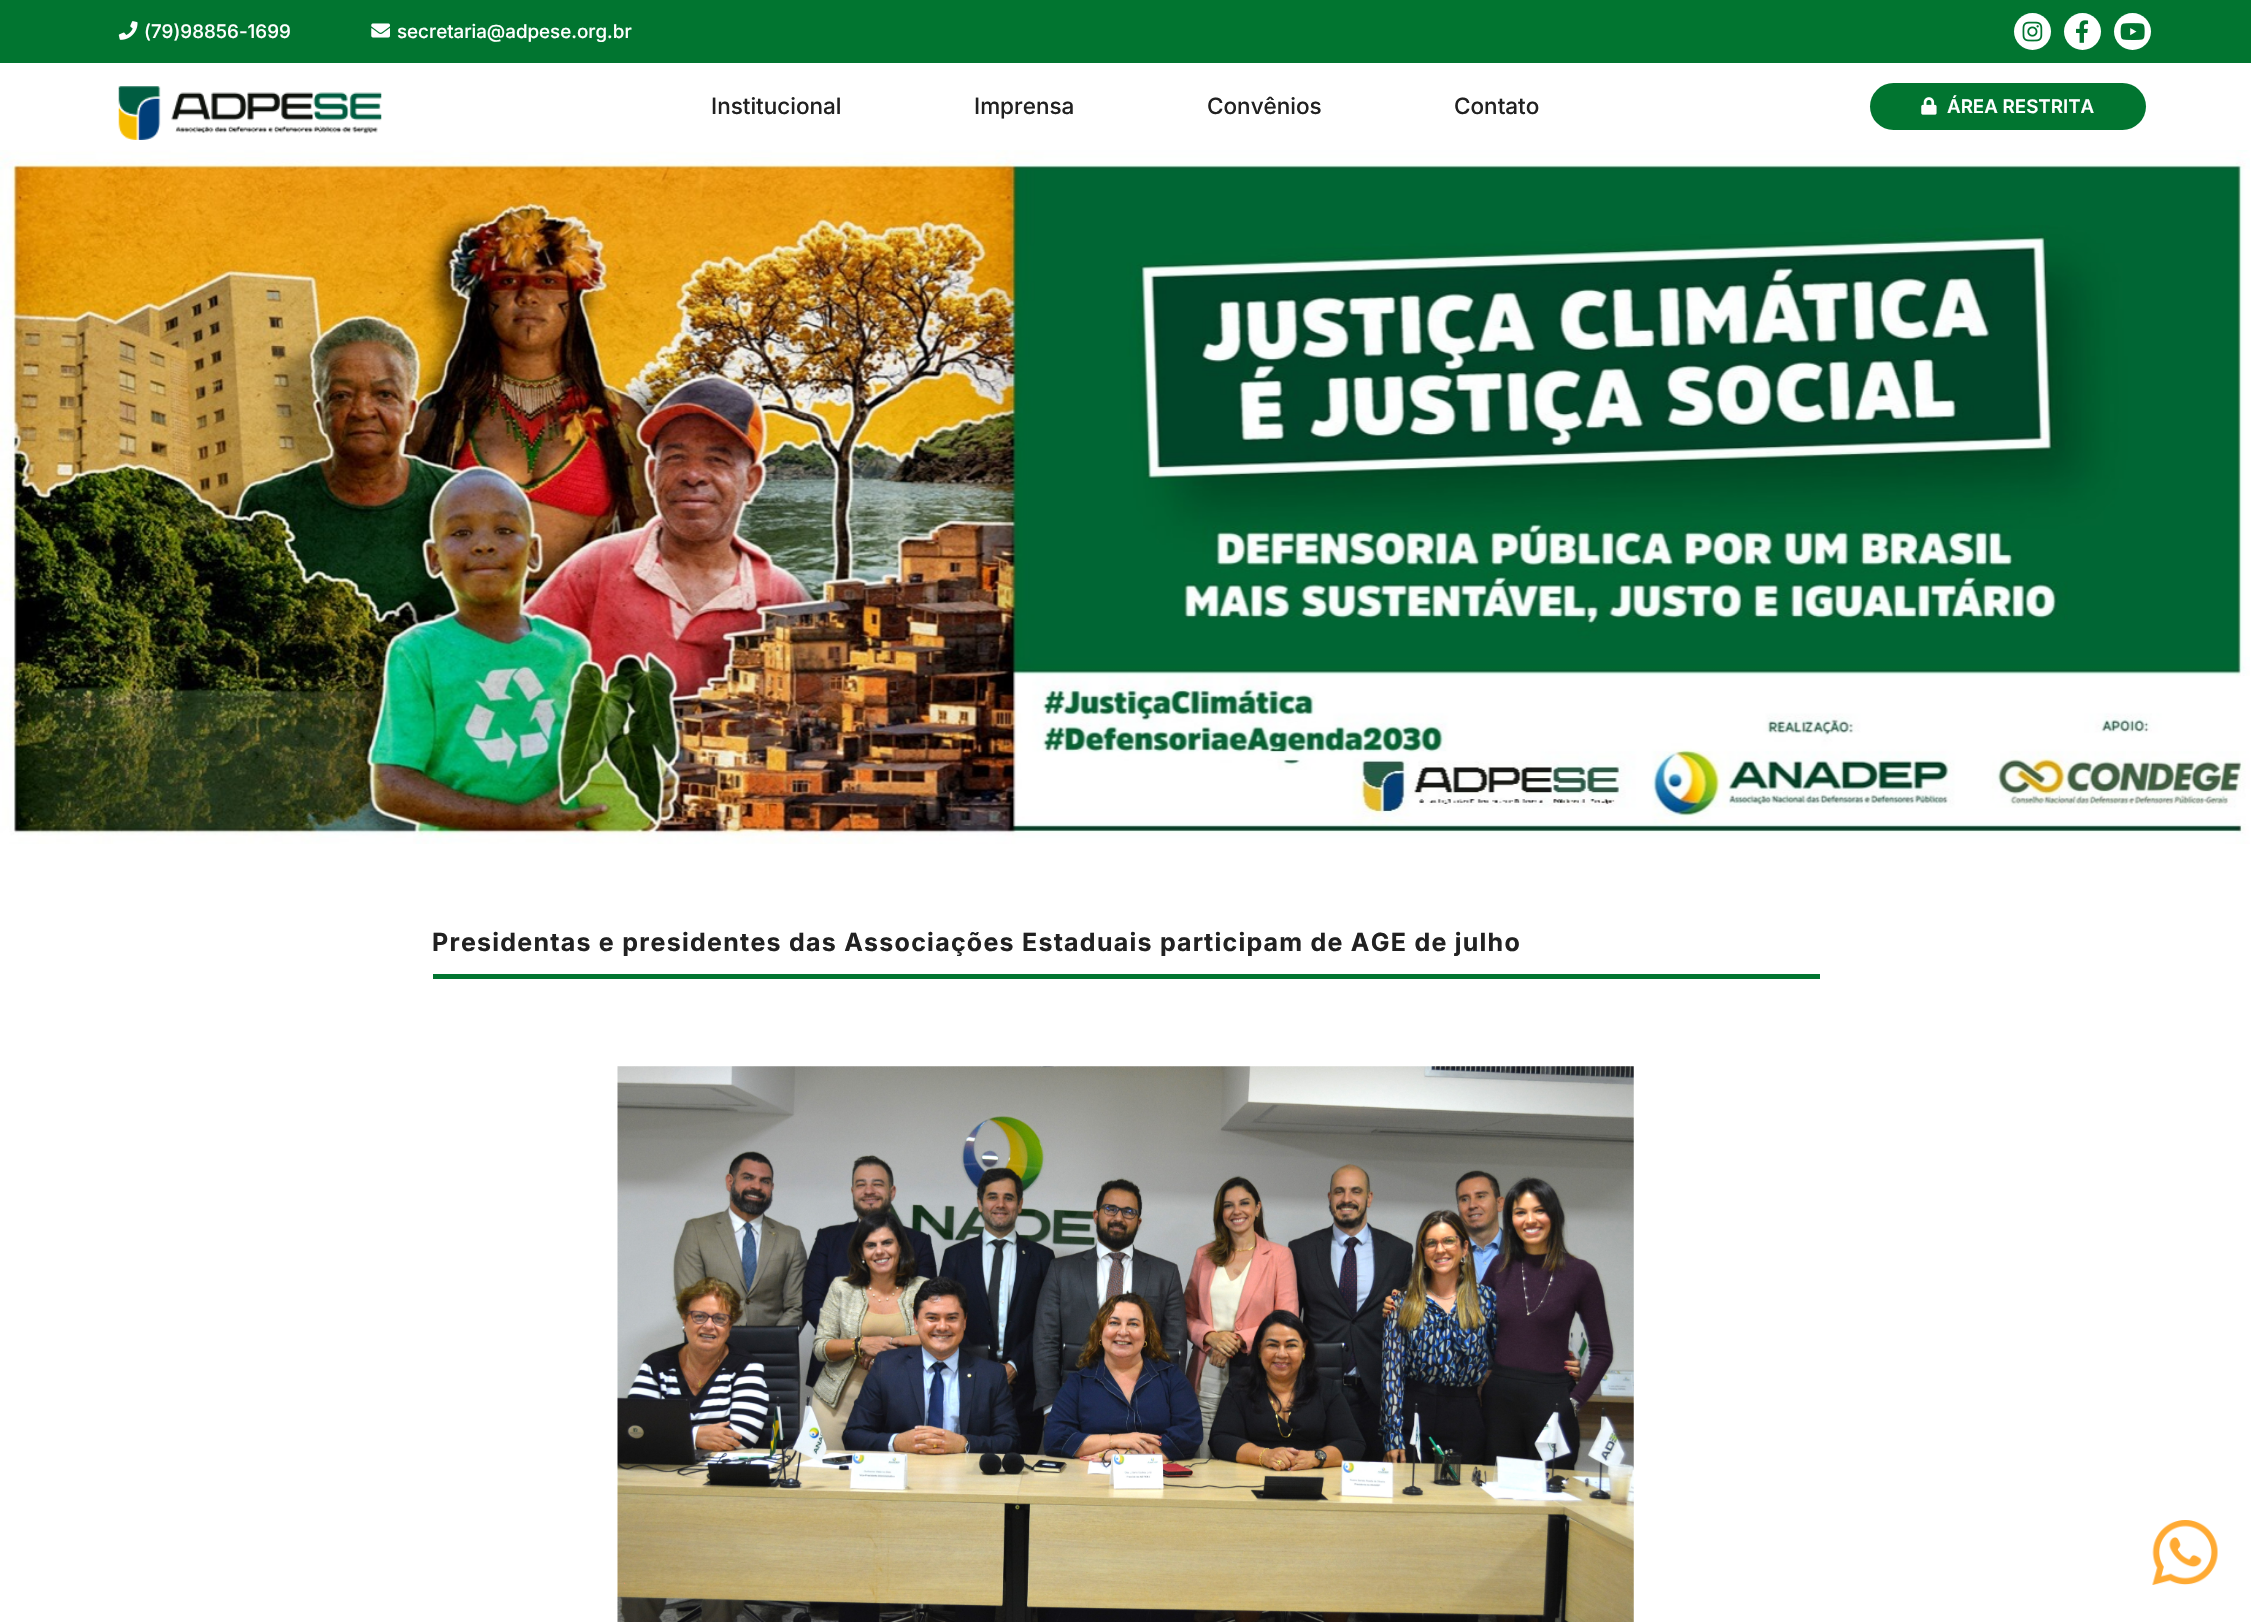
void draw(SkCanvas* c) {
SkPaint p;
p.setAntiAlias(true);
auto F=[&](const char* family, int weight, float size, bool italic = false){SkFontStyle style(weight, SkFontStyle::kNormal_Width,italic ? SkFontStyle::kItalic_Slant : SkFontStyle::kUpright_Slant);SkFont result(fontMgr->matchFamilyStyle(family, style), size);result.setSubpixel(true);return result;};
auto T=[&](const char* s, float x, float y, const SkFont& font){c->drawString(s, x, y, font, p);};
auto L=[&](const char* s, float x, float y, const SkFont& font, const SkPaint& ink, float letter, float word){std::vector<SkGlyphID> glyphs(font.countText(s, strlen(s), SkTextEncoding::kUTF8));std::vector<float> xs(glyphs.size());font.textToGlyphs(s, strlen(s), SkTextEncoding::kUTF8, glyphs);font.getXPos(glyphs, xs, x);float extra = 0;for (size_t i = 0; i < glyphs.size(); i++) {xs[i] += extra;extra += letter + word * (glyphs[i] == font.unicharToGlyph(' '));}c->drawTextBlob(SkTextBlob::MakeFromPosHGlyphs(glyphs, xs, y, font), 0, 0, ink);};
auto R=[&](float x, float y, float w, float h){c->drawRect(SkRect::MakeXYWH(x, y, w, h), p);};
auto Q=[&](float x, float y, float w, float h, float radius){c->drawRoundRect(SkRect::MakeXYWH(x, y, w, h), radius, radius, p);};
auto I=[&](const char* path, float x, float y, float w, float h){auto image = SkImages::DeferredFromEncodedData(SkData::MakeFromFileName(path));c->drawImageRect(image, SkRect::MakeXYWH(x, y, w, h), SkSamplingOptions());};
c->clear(0xffffffff);
p.setColor(0xff017530);
R(0,0,2251,63);
I("1.png",118,21,20,19);
auto f1 = F("Inter",500,18.75);
p.setColor(0xffffffff);
T("(79)98856-1699",144,38,f1);
I("2.png",371,23,19,15);
T("secretaria@adpese.org.br",397,38,f1);
c->drawCircle(2032.5,31.5,18.5,p);
I("3.png",2022,21,21,21);
c->drawCircle(2082.5,31.5,18.5,p);
I("4.png",2076,20,13,23);
c->drawCircle(2132.5,31.5,18.5,p);
I("5.png",2120,23,25,17);
I("6.png",118,86,264,54);
auto f2 = F("Inter",500,22.5);
p.setColor(0xff212121);
T("Institucional",711,114,f2);
T("Imprensa",974,114,f2);
T("Convênios",1207,114,f2);
T("Contato",1454,114,f2);
p.setColor(0xff017530);
Q(1870,83,276,47,23.5);
I("7.png",1921,97,16,18);
auto f3 = F("Inter",600,18.75);
p.setColor(0xffffffff);
T("ÁREA RESTRITA",1947,113,f3);
I("8.png",0,150,2250,694);
auto f4 = F("Inter",700,25);
p.setColor(0xff212121);
L("Presidentas e presidentes das Associações Estaduais participam de AGE de julho",432,951,f4,p,1.25,0);
p.setColor(0xff017530);
R(433,974,1387,5);
I("9.png",617,1066,1017,556);
I("10.png",2152,1520,66,65);
}
